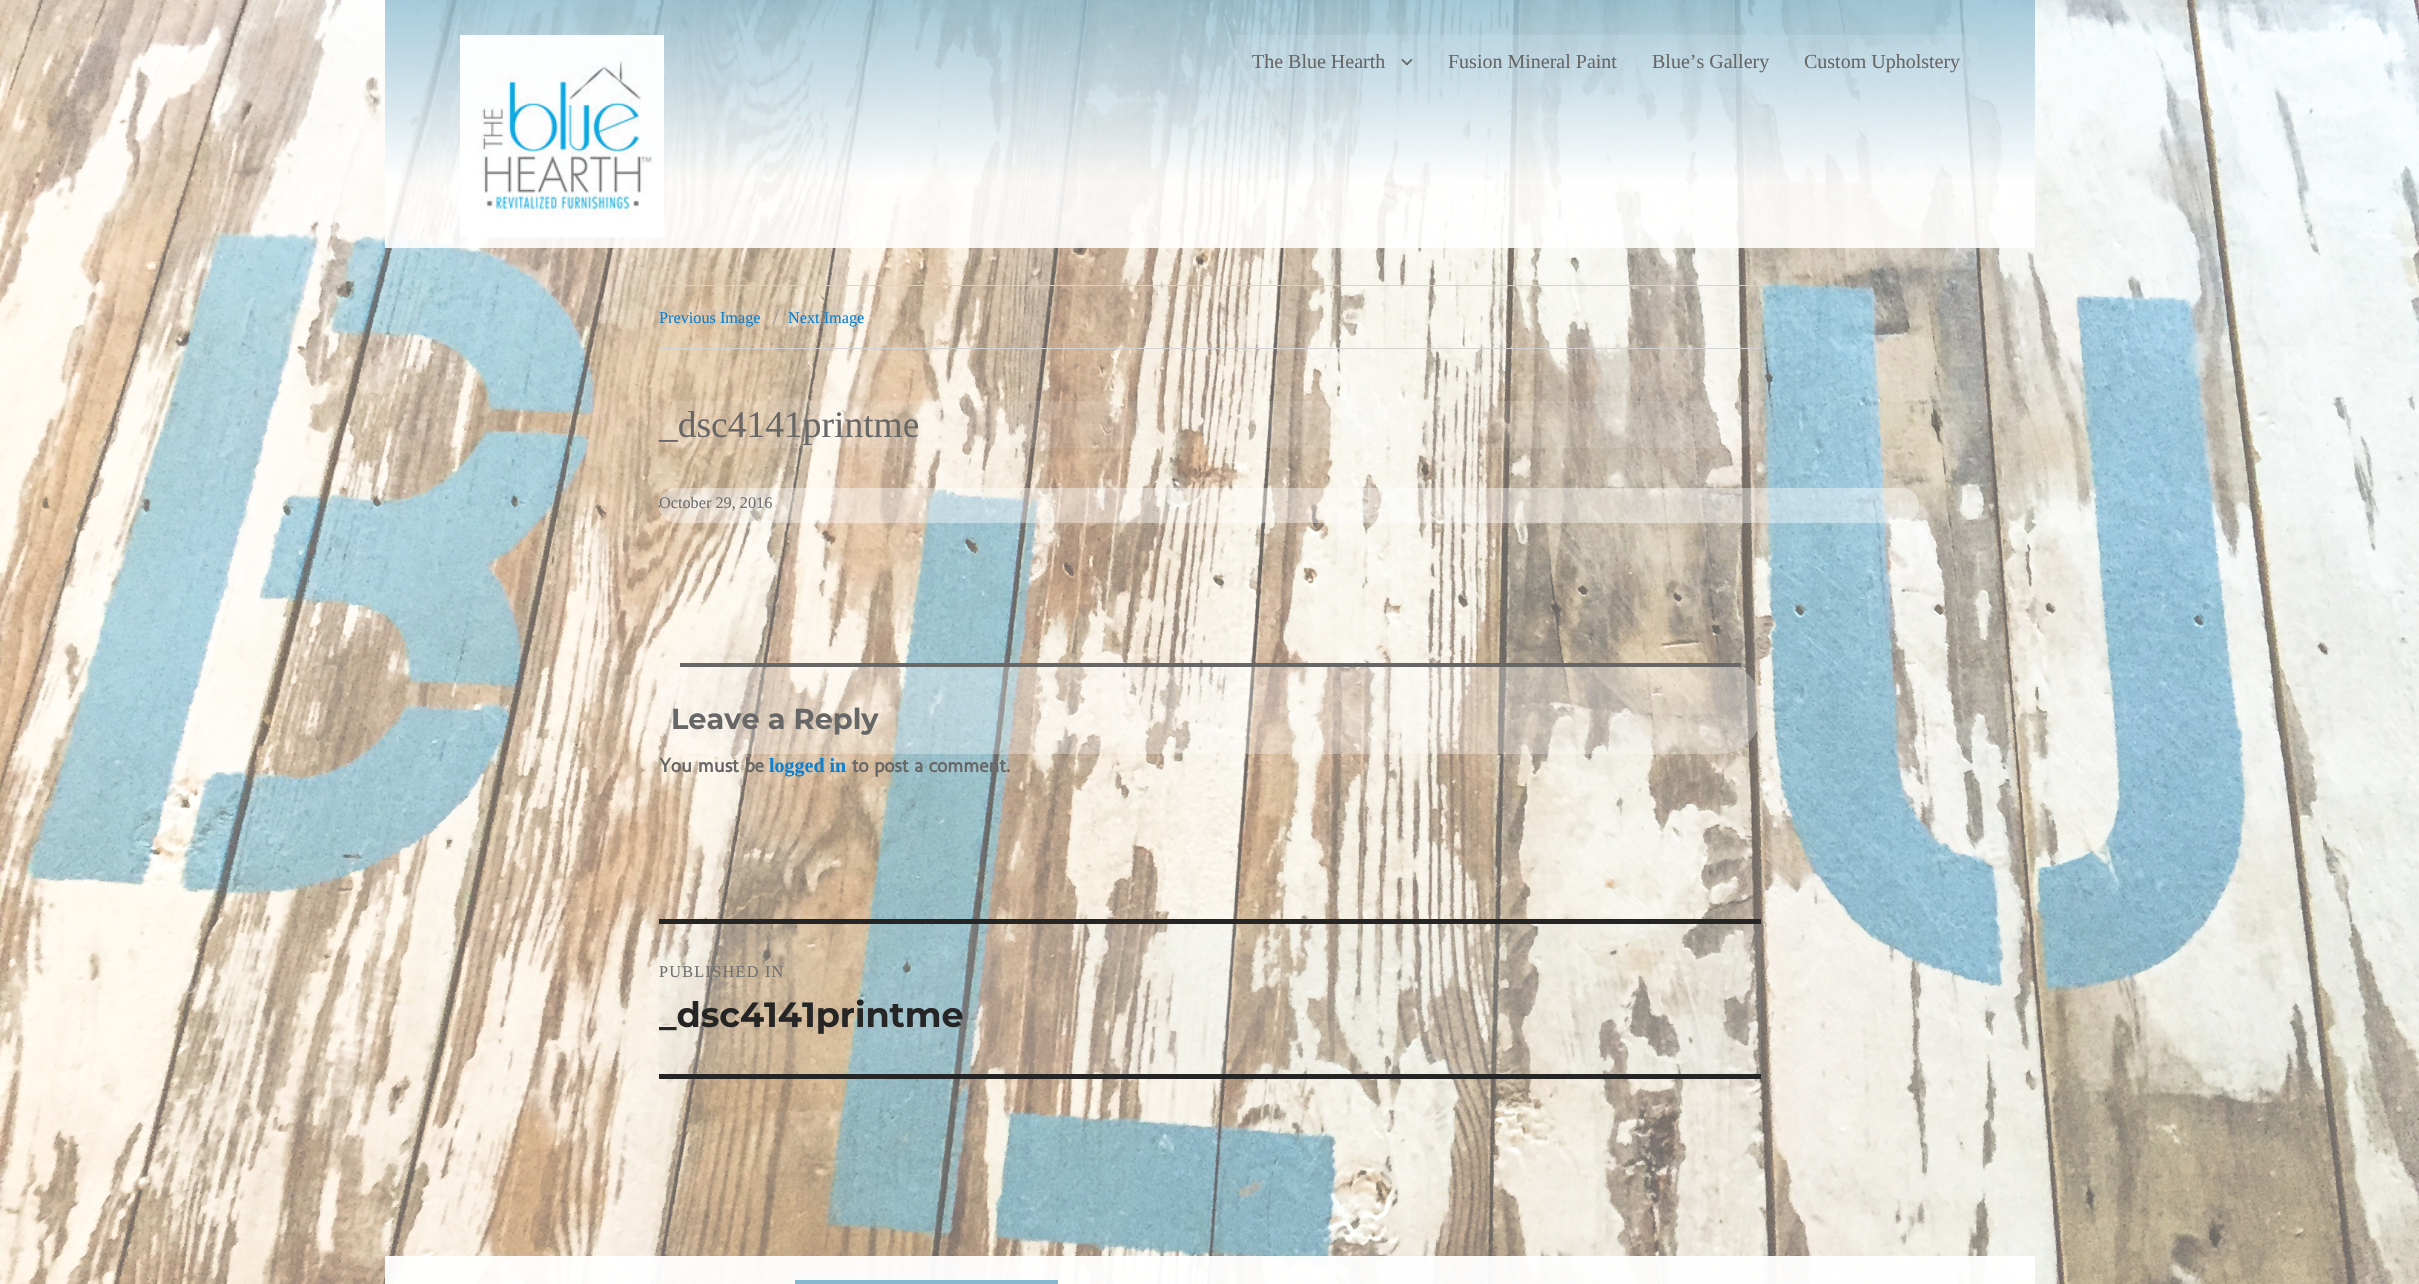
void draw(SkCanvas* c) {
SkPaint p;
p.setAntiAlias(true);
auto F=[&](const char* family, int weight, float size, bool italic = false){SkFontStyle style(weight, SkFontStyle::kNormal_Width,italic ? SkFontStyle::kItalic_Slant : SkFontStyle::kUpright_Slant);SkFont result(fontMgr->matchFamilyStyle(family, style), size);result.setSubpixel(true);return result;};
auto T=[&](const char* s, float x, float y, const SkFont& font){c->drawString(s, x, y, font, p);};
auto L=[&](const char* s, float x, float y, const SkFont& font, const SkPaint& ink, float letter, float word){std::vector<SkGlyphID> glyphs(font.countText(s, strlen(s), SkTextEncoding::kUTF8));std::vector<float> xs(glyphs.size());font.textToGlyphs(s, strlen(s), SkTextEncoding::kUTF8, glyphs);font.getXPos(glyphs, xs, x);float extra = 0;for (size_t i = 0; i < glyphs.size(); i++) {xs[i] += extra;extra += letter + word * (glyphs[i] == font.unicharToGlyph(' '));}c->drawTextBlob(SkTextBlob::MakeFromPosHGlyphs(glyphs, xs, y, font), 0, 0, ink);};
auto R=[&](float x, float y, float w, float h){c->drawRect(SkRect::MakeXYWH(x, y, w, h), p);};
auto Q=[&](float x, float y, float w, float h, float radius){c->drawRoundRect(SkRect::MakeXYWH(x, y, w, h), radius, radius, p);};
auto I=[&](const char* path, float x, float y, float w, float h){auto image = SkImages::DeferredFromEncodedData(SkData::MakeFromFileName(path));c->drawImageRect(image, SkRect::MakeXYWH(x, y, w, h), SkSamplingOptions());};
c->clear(0xffffffff);
I("1.png",0,0,2419,1284);
{
const SkColor colors[] = {0xcc91bdd2,0xe0ffffff};
const float stops[] = {0,.73};
const SkPoint ends[] = {{1210,0}, {1210,248}};
p.setShader(SkGradientShader::MakeLinear(ends, colors, stops, 2, SkTileMode::kClamp));
p.setAlpha(255);
}
R(385,0,1650,248);
p.setShader(nullptr);
p.setColor(0x1acfe2eb);
R(460,35,204,203);
I("2.png",460,35,204,203);
p.setColor(0x33cfe2eb);
R(1235,35,743,53);
p.setColor(0x1acfe2eb);
R(1235,35,195,34);
auto f1 = F("Liberation Serif",400,20);
p.setColor(0xff676767);
T("The Blue Hearth",1252,68,f1);
I("3.png",1401,58,12,8);
p.setColor(0x1acfe2eb);
R(1440,35,194,34);
p.setColor(0xff676767);
T("Fusion Mineral Paint",1448,68,f1);
p.setColor(0x1acfe2eb);
R(1661,35,83,34);
p.setColor(0xff676767);
T("Blue’s Gallery",1652,68,f1);
p.setColor(0x1acfe2eb);
R(1787,35,179,36);
p.setColor(0xff676767);
T("Custom Upholstery",1804,68,f1);
p.setColor(0xffd3d3d3);
R(659,285,1102,1);
R(659,348,1102,1);
p.setColor(0x1acfe2eb);
R(659,308,101,18);
auto f2 = F("Liberation Serif",400,16.25);
p.setColor(0xff0d81cf);
T("Previous Image",659,323,f2);
auto f3 = F("Montserrat",400,16.25);
p.setColor(0xff9b9b9b);
T("/",773,323,f3);
p.setColor(0x1acfe2eb);
R(788,308,76,18);
p.setColor(0xff0d81cf);
T("Next Image",788,323,f2);
p.setColor(0x1affffff);
Q(659,401,1102,47,23.5);
auto f4 = F("Liberation Serif",400,37.5);
p.setColor(0xff676767);
T("_dsc4141printme",659,437,f4);
p.setColor(0x66ffffff);
Q(659,488,1260,35,17.5);
I("4.png",658,505,2,3);
p.setColor(0x1acfe2eb);
R(659,494,114,19);
p.setColor(0xff707070);
T("October 29, 2016",659,508,f2);
p.setColor(0x4dffffff);
Q(659,663,1102,91,41);
p.setColor(0xff676767);
R(680,663,1061,4);
auto f5 = F("Montserrat",700,28.75);
T("Leave a Reply",671,729,f5);
auto f6 = F("Molengo",700,20);
T("You must be",659,772,f6);
p.setColor(0x1acfe2eb);
R(770,755,76,21);
auto f7 = F("Liberation Serif",700,20);
p.setColor(0xff0d81cf);
T("logged in",769,772,f7);
p.setColor(0xff676767);
T("to post a comment.",852,772,f6);
p.setColor(0xff252525);
R(659,919,1102,5);
R(659,1074,1102,5);
p.setColor(0x1acfe2eb);
R(659,924,1102,150);
p.setColor(0xff707070);
L("PUBLISHED IN",659,977,f2,p,1.25,0);
auto f8 = F("Montserrat",700,35);
p.setColor(0xff252525);
T("_dsc4141printme",659,1027,f8);
{
const SkColor colors[] = {0xf2ffffff,0xcc91bdd2};
const float stops[] = {.48,.93};
const SkPoint ends[] = {{1210,1256}, {1210,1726}};
p.setShader(SkGradientShader::MakeLinear(ends, colors, stops, 2, SkTileMode::kClamp));
p.setAlpha(255);
}
R(385,1256,1650,28);
p.setShader(nullptr);
p.setColor(0xff85b7ce);
R(795,1280,263,4);
}
